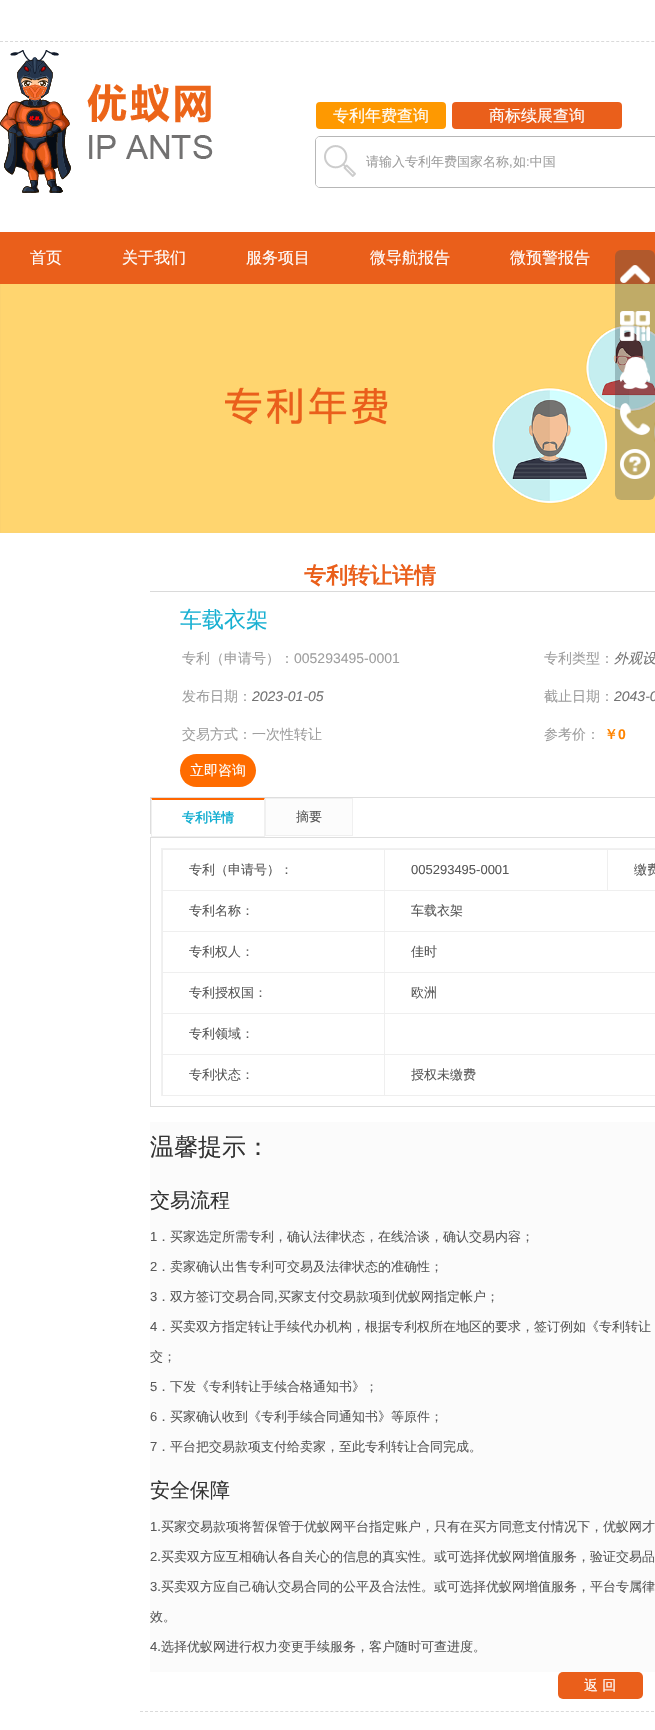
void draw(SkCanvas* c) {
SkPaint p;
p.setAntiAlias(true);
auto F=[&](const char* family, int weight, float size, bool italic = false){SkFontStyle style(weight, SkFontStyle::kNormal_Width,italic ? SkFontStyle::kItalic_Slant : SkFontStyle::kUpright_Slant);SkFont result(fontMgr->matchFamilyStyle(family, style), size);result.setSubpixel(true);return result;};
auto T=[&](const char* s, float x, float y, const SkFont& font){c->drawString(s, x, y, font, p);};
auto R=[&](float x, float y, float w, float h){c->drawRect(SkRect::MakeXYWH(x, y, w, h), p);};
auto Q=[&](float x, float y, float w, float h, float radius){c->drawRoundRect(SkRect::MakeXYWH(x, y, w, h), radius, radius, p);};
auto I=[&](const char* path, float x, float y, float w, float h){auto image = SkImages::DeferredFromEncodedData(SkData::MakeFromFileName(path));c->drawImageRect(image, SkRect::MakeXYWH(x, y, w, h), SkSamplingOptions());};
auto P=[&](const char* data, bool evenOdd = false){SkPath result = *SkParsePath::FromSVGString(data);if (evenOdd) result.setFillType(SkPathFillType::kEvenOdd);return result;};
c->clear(0xffffffff);
p.setStroke(true);
p.setStrokeWidth(1);
p.setColor(0xffdadada);
p.setPathEffect(SkDashPathEffect::Make({{3,2.01f}}, 0));
c->drawPath(P("M0 41.5h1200"),p);
p.setPathEffect(nullptr);
I("1.png",0,50,213,143);
p.setStroke(false);
p.setColor(0xfffe9901);
Q(316,102,130,27,4);
auto f1 = F("WenQuanYi Zen Hei",500,16);
p.setColor(0xffffffff);
T("专利年费查询",333,121,f1);
p.setColor(0xffea5f1b);
Q(452,102,170,27,4);
p.setColor(0xffffffff);
T("商标续展查询",489,121,f1);
p.setStroke(true);
p.setColor(0xffb7b7b7);
c->drawRoundRect(SkRect::MakeXYWH(315.5,136.5,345,51),4.5,4.5,p);
p.setStroke(false);
p.setColor(0xffffffff);
Q(316,137,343,50,4);
I("2.png",324,145,32,32);
auto f2 = F("WenQuanYi Zen Hei",500,13);
p.setColor(0xff9e9e9e);
T("请输入专利年费国家名称 如 中国",366,166,f2);
auto f3 = F("Liberation Sans",400,13);
T(",",509,166,f3);
T(":",526,166,f3);
p.setColor(0xffea5f1b);
R(0,232,655,52);
p.setColor(0xffffffff);
T("首页",30,263,f1);
T("关于我们",122,263,f1);
T("服务项目",246,263,f1);
T("微导航报告",370,263,f1);
T("微预警报告",510,263,f1);
I("8.png",0,284,655,249);
p.setColor(0x4d304852);
Q(615,250,40,250,6);
I("3.png",620,265,30,18);
I("4.png",620,311,30,30);
I("5.png",620,357,30,32);
I("6.png",620,403,30,32);
I("7.png",620,449,30,30);
auto f4 = F("WenQuanYi Zen Hei",700,22);
p.setColor(0xffea5f1b);
T("专利转让详情",304,583,f4);
p.setColor(0xffdadada);
R(150,591,505,1);
auto f5 = F("WenQuanYi Zen Hei",500,22);
p.setColor(0xff18b0d2);
T("车载衣架",180,627,f5);
auto f6 = F("WenQuanYi Zen Hei",500,14);
p.setColor(0xff9e9e9e);
T("专利（申请号）：",182,663,f6);
auto f7 = F("Liberation Sans",400,14);
T("005293495-0001",294,663,f7);
T("专利类型：",544,663,f6);
auto f8 = F("WenQuanYi Zen Hei",500,14,true);
p.setColor(0xff747474);
T("外观设",614,663,f8);
p.setColor(0xff9e9e9e);
T("发布日期：",182,701,f6);
auto f9 = F("Liberation Sans",400,14,true);
p.setColor(0xff747474);
T("2023-01-05",252,701,f9);
p.setColor(0xff9e9e9e);
T("截止日期：",544,701,f6);
p.setColor(0xff747474);
T("2043-0",614,701,f9);
p.setColor(0xff9e9e9e);
T("交易方式：一次性转让",182,739,f6);
T("参考价：",544,739,f6);
auto f10 = F("WenQuanYi Zen Hei",700,14);
p.setColor(0xffff8400);
T("￥",604,739,f10);
auto f11 = F("Liberation Sans",700,14);
T("0",618,739,f11);
p.setColor(0xffff6c00);
Q(180,754,76,33,16.5);
p.setColor(0xffffffff);
T("立即咨询",190,775,f6);
p.setColor(0xffdedede);
R(150,797,505,1);
R(150,797,1,37);
p.setColor(0xffff6600);
c->drawPath(P("M151 798h114l-1 2h-112z"),p);
p.setColor(0xfff0f0f0);
c->drawPath(P("M265 798v39l-1-1v-36z"),p);
R(151,836,114,1);
c->drawPath(P("M151 837v-39l1 2v36z"),p);
auto f12 = F("WenQuanYi Zen Hei",700,13);
p.setColor(0xff18b0d2);
T("专利详情",182,822,f12);
p.setColor(0xfffcfcfc);
c->drawRect(SkRect::MakeXYWH(265.5,798.5,87,37),p);
p.setStroke(true);
p.setColor(0xfff0f0f0);
c->drawRect(SkRect::MakeXYWH(265.5,798.5,87,37),p);
p.setStroke(false);
p.setColor(0xff585858);
T("摘要",296,821,f2);
p.setStroke(true);
p.setColor(0xffdedede);
c->drawRect(SkRect::MakeXYWH(150.5,837.5,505,269),p);
p.setStroke(false);
p.setColor(0xfff1f1f1);
R(161,848,494,1);
R(161,848,1,248);
p.setColor(0xffefefef);
R(607,849,48,1);
R(384,890,271,1);
R(607,849,1,42);
R(384,849,224,1);
R(384,931,271,1);
R(384,972,271,1);
R(384,1013,271,1);
R(384,1054,271,1);
R(384,1095,271,1);
R(384,1054,1,42);
R(162,1054,223,1);
R(384,1013,1,42);
R(162,1013,223,1);
R(384,972,1,42);
R(162,972,223,1);
R(384,931,1,42);
R(162,931,223,1);
R(384,890,1,42);
R(162,890,223,1);
R(384,849,1,42);
R(162,849,223,1);
R(162,1095,223,1);
R(162,1054,1,42);
R(162,1013,1,42);
R(162,972,1,42);
R(162,931,1,42);
R(162,890,1,42);
R(162,849,1,42);
p.setColor(0xff585858);
T("专利（申请号）：",189,874,f2);
T("005293495-0001",411,874,f3);
T("缴费",634,874,f2);
T("专利名称：",189,915,f2);
T("车载衣架",411,915,f2);
T("专利权人：",189,956,f2);
T("佳时",411,956,f2);
T("专利授权国：",189,997,f2);
T("欧洲",411,997,f2);
T("专利领域：",189,1038,f2);
T("专利状态：",189,1079,f2);
T("授权未缴费",411,1079,f2);
p.setColor(0xfffbfbfb);
R(150,1122,505,550);
auto f13 = F("WenQuanYi Zen Hei",500,24);
p.setColor(0xff333333);
T("温馨提示：",150,1155,f13);
auto f14 = F("WenQuanYi Zen Hei",500,20);
T("交易流程",150,1207,f14);
p.setColor(0xff585858);
T("1",150,1241,f3);
T("．买家选定所需专利，确认法律状态，在线洽谈，确认交易内容；",157,1241,f2);
T("2",150,1271,f3);
T("．卖家确认出售专利可交易及法律状态的准确性；",157,1271,f2);
T("3",150,1301,f3);
T("．双方签订交易合同 买家支付交易款项到优蚁网指定帐户；",157,1301,f2);
T(",",274,1301,f3);
T("4",150,1331,f3);
T("．买卖双方指定转让手续代办机构，根据专利权所在地区的要求，签订例如《专利转让",157,1331,f2);
T("交；",150,1361,f2);
T("5",150,1391,f3);
T("．下发《专利转让手续合格通知书》；",157,1391,f2);
T("6",150,1421,f3);
T("．买家确认收到《专利手续合同通知书》等原件；",157,1421,f2);
T("7",150,1451,f3);
T("．平台把交易款项支付给卖家，至此专利转让合同完成。",157,1451,f2);
p.setColor(0xff333333);
T("安全保障",150,1497,f14);
p.setColor(0xff585858);
T("1.",150,1531,f3);
T("买家交易款项将暂保管于优蚁网平台指定账户，只有在买方同意支付情况下，优蚁网才",161,1531,f2);
T("2.",150,1561,f3);
T("买卖双方应互相确认各自关心的信息的真实性。或可选择优蚁网增值服务，验证交易品",161,1561,f2);
T("3.",150,1591,f3);
T("买卖双方应自己确认交易合同的公平及合法性。或可选择优蚁网增值服务，平台专属律",161,1591,f2);
T("效。",150,1621,f2);
T("4.",150,1651,f3);
T("选择优蚁网进行权力变更手续服务，客户随时可查进度。",161,1651,f2);
p.setStroke(true);
p.setColor(0xffdadada);
p.setPathEffect(SkDashPathEffect::Make({{3,2.01f}}, 0));
c->drawPath(P("M140 1711.5h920"),p);
p.setPathEffect(nullptr);
p.setStroke(false);
p.setColor(0xffea5f1b);
Q(558,1672,85,27,5);
p.setColor(0xffffffff);
T("返 回",584,1690,f6);
}
